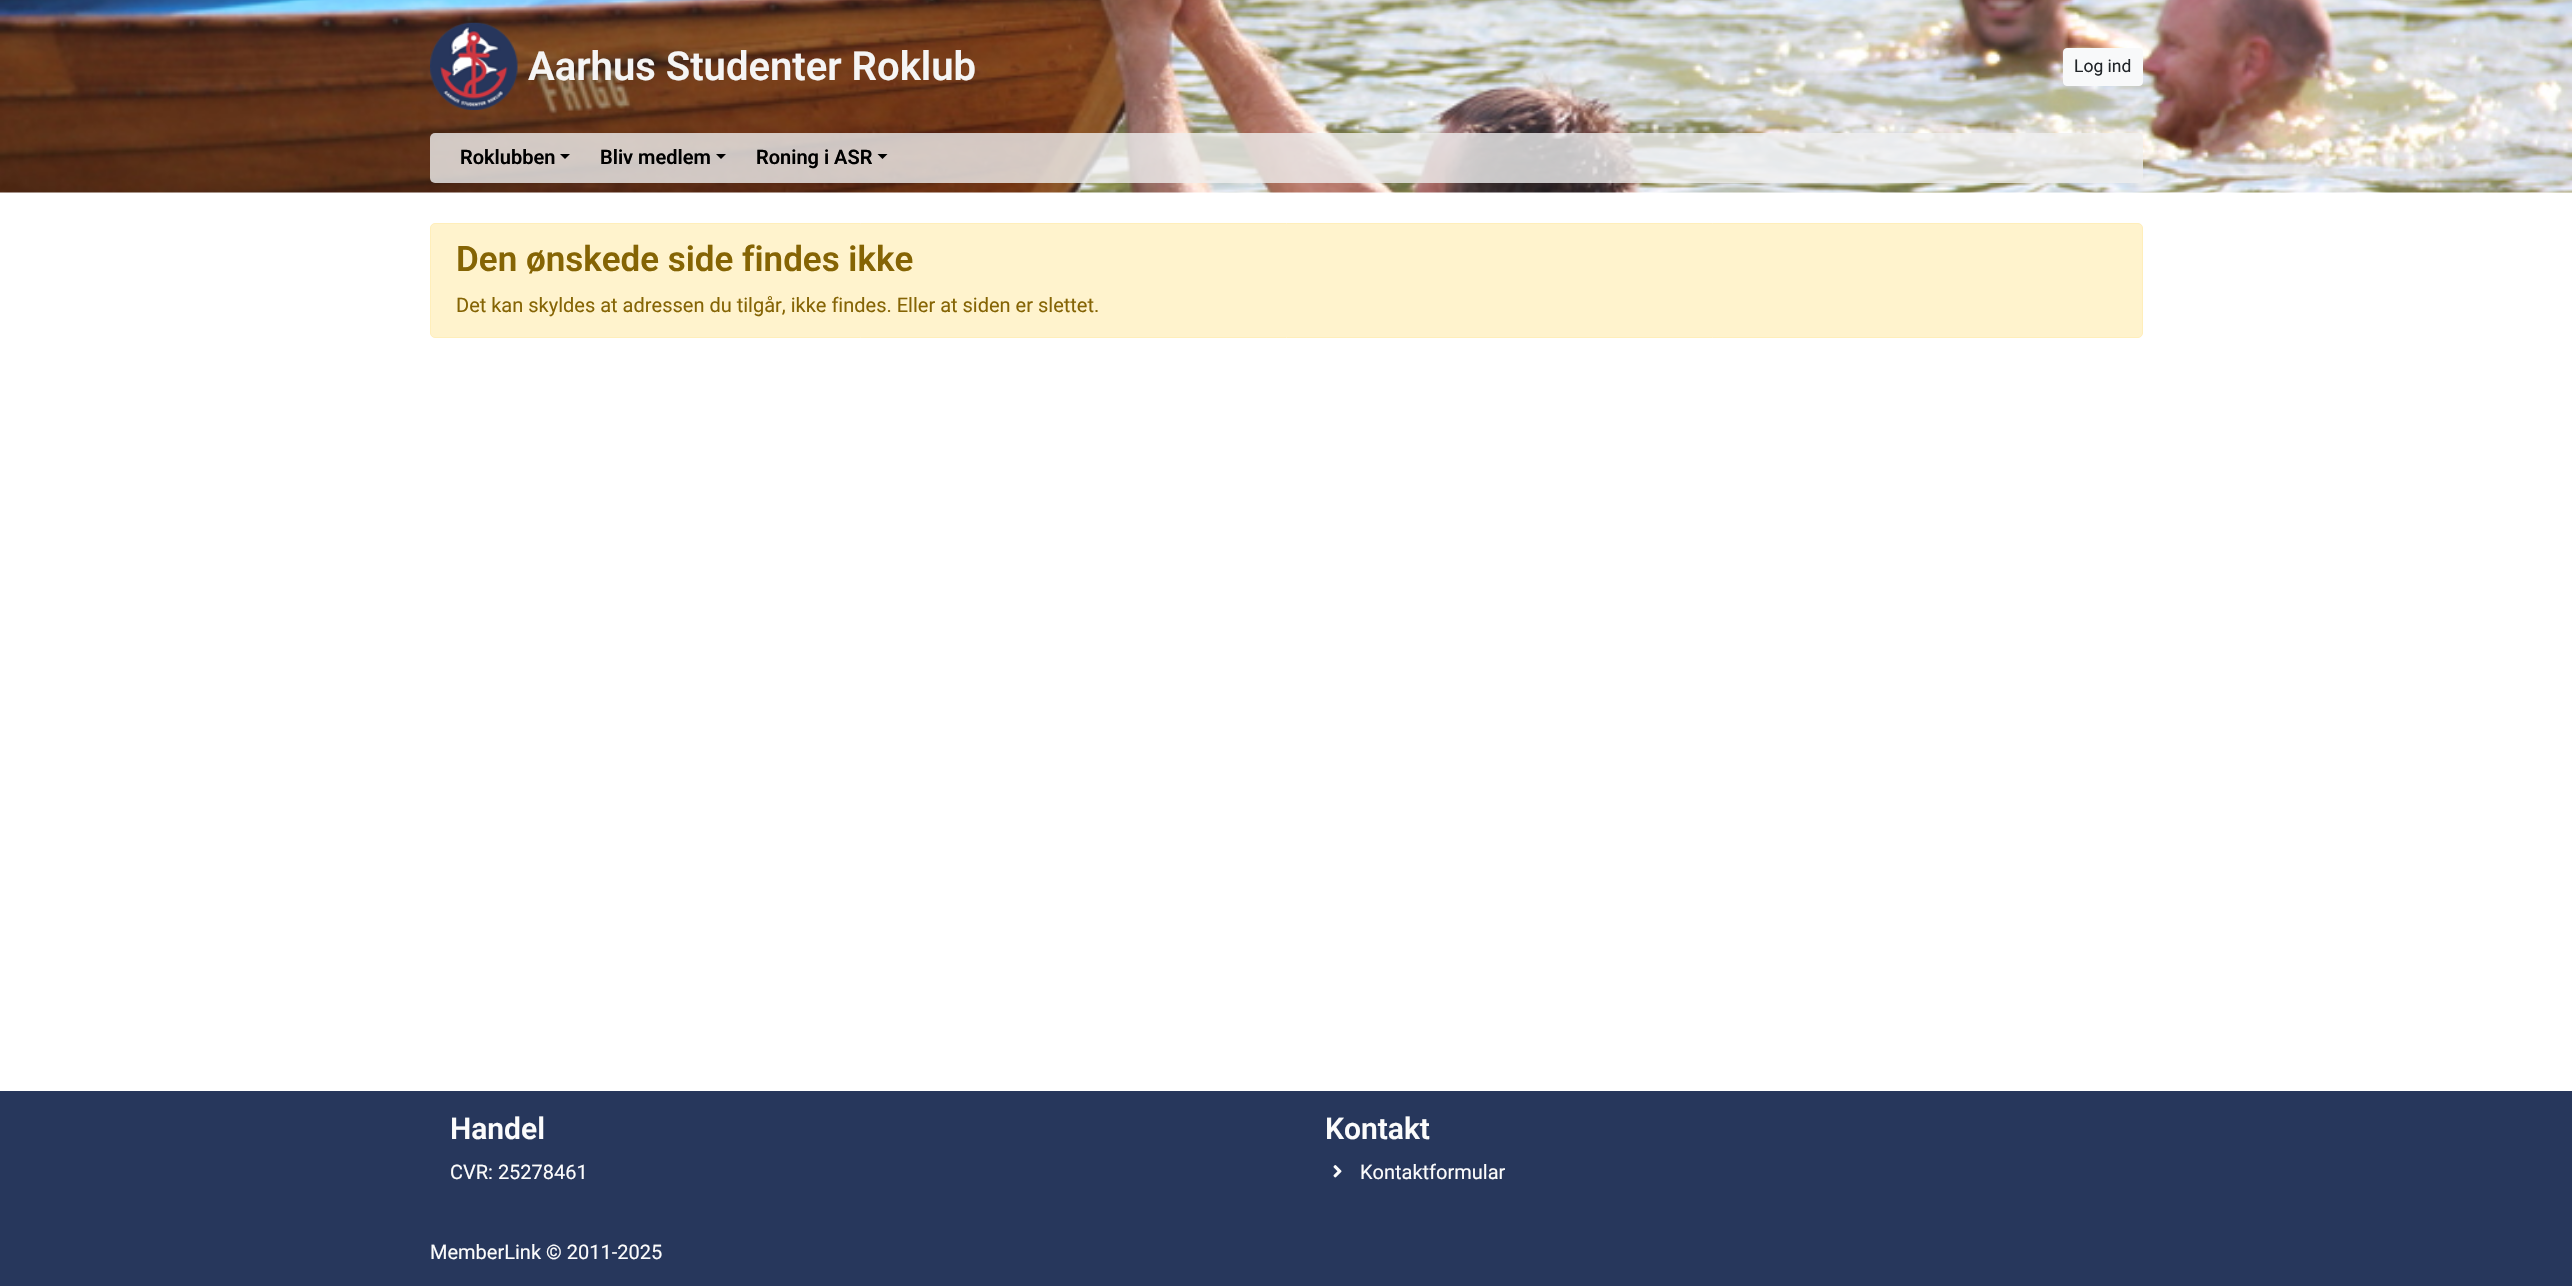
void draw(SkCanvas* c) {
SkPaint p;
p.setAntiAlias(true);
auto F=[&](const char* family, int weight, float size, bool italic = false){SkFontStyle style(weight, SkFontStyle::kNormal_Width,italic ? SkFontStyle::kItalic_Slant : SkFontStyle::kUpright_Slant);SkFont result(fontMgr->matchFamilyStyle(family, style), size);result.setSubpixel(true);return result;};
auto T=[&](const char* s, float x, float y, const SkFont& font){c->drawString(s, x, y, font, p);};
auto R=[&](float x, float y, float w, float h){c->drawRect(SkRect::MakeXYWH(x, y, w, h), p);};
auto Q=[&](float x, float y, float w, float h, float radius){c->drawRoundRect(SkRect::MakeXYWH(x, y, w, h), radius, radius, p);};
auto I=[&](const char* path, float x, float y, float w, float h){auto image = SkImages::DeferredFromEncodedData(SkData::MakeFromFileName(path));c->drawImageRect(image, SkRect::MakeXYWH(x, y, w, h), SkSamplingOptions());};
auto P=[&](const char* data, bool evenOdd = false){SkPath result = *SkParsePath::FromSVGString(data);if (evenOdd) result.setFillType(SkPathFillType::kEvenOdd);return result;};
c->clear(0xffffffff);
I("1.png",0,0,2572,193);
I("2.png",430,22,88,88);
auto f1 = F("Roboto",600,40);
p.setColor(0xfff5f5f5);
T("Aarhus Studenter Roklub",528,80,f1);
p.setColor(0xfff8f9fa);
c->drawRoundRect(SkRect::MakeXYWH(2063.5,48.5,79,37),3.5,3.5,p);
p.setStroke(true);
p.setStrokeWidth(1);
c->drawRoundRect(SkRect::MakeXYWH(2063.5,48.5,79,37),3.5,3.5,p);
auto f2 = F("Roboto",400,17.5);
p.setStroke(false);
p.setColor(0xff212529);
T("Log ind",2074,72,f2);
p.setColor(0xccefefef);
Q(430,133,1713,50,5);
auto f3 = F("Roboto",600,20);
p.setColor(0xff000000);
T("Roklubben",460,164,f3);
c->drawPath(P("M560 154h10l-5 5z"),p);
T("Bliv medlem",600,164,f3);
c->drawPath(P("M716 154h10l-5 5z"),p);
T("Roning i ASR",756,164,f3);
c->drawPath(P("M877.5 154h10l-5 5z"),p);
p.setColor(0xfffff3cd);
c->drawRoundRect(SkRect::MakeXYWH(430.5,223.5,1712,114),4.5,4.5,p);
p.setStroke(true);
p.setColor(0xffffeeba);
c->drawRoundRect(SkRect::MakeXYWH(430.5,223.5,1712,114),4.5,4.5,p);
auto f4 = F("Roboto",600,35);
p.setStroke(false);
p.setColor(0xff856404);
T("Den ønskede side findes ikke",456,271,f4);
auto f5 = F("Roboto",400,20);
T("Det kan skyldes at adressen du tilgår, ikke findes. Eller at siden er slettet.",456,312,f5);
p.setColor(0xff27375c);
R(0,1091,2572,195);
auto f6 = F("Roboto",600,30);
p.setColor(0xfffcfcfc);
T("Handel",450,1139,f6);
T("CVR: 25278461",450,1179,f5);
T("MemberLink © 2011-2025",430,1259,f5);
T("Kontakt",1325,1139,f6);
I("3.png",1333,1165,9,13);
T("Kontaktformular",1360,1179,f5);
}
